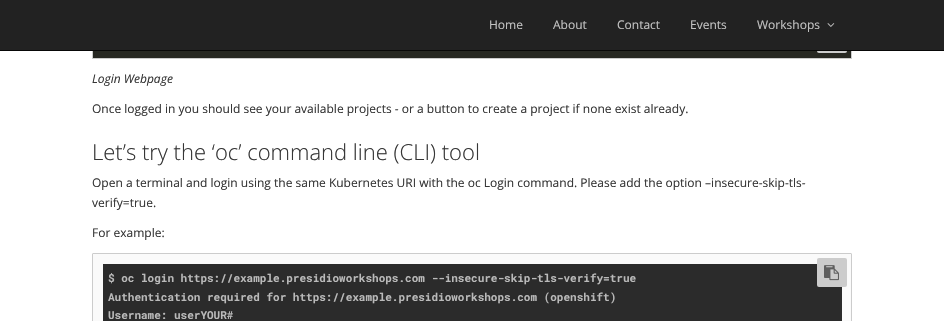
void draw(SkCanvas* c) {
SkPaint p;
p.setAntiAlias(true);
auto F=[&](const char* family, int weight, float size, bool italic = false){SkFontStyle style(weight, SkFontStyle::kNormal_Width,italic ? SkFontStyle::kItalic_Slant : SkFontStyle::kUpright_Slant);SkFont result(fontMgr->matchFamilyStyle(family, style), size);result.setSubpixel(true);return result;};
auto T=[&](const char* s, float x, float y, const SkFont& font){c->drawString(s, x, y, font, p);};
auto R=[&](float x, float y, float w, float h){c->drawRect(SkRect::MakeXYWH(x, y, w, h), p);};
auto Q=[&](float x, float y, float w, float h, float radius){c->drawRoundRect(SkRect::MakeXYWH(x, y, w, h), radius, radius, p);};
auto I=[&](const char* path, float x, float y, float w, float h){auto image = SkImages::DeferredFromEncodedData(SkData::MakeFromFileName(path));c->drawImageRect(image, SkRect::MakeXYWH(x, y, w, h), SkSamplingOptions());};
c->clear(0xffffffff);
p.setColor(0xff272822);
c->drawRoundRect(SkRect::MakeXYWH(92.5,19.5,759,39),.5,.5,p);
p.setStroke(true);
p.setStrokeWidth(1);
p.setColor(0xffcccccc);
c->drawRoundRect(SkRect::MakeXYWH(92.5,19.5,759,39),.5,.5,p);
p.setStroke(false);
Q(817,24,30,29,2);
p.setColor(0xff222222);
R(0,0,944,50);
p.setColor(0xff080808);
R(0,50,944,1);
auto f1 = F("Open Sans",400,12);
p.setColor(0xffc2c2c2);
T("Home",489,29,f1);
T("About",553,29,f1);
T("Contact",617,29,f1);
T("Events",690,29,f1);
T("Workshops",757,29,f1);
I("1.png",827,23,8,4);
auto f2 = F("Open Sans",400,12,true);
p.setColor(0xff363636);
T("Login Webpage",92,83,f2);
T("Once logged in you should see your available projects - or a button to create a project if none exist already.",92,113,f1);
auto f3 = F("Open Sans",300,22);
T("Let’s try the ‘oc’ command line (CLI) tool",92,160,f3);
T("Open a terminal and login using the same Kubernetes URI with the oc Login command. Please add the option –insecure-skip-tls-",92,187,f1);
T("verify=true.",92,207,f1);
T("For example:",92,237,f1);
p.setColor(0xfffafafa);
c->drawRoundRect(SkRect::MakeXYWH(92.5,253.5,759,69),.5,.5,p);
p.setStroke(true);
p.setColor(0xffcccccc);
c->drawRoundRect(SkRect::MakeXYWH(92.5,253.5,759,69),.5,.5,p);
p.setStroke(false);
p.setColor(0xff2b2b2b);
R(103,264,739,57);
auto f4 = F("Roboto Mono",700,11);
p.setColor(0xffbababa);
T("$ oc login https://example.presidioworkshops.com --insecure-skip-tls-verify=true",108,282,f4);
T("Authentication required for https://example.presidioworkshops.com (openshift)",108,301,f4);
T("Username: userYOUR#",108,319,f4);
p.setColor(0xffcccccc);
Q(817,258,30,29,2);
I("2.png",824,265,15,16);
}
